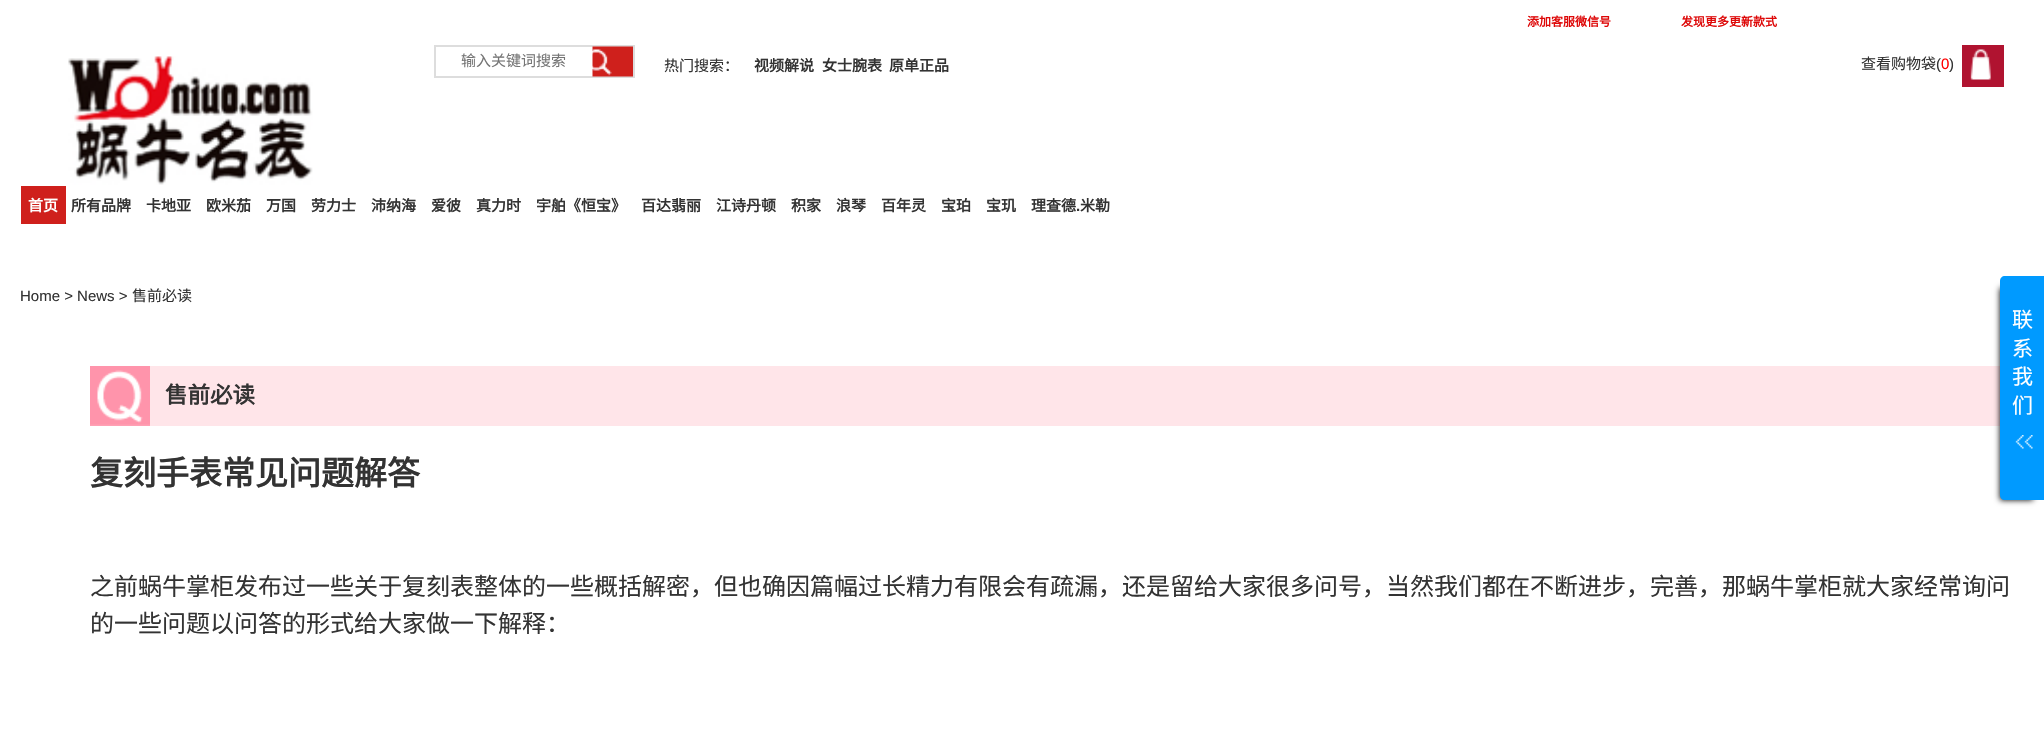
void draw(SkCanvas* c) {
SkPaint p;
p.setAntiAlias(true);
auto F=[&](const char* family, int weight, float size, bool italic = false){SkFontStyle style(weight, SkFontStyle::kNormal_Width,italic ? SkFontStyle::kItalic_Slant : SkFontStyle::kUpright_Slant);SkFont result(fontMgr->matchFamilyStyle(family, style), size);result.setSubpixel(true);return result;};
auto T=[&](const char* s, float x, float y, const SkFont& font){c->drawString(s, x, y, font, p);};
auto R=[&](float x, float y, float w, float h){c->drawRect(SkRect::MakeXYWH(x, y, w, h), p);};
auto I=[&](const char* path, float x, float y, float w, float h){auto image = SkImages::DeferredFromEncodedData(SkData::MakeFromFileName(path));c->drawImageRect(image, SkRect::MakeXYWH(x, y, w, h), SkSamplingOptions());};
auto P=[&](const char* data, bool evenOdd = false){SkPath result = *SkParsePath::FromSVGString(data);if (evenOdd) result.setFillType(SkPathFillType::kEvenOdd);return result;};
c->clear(0xffffffff);
auto f1 = F("Noto Sans CJK SC",700,12);
p.setColor(0xffde0808);
T("添加客服微信号",1527,26,f1);
T("发现更多更新款式",1681,26,f1);
I("1.png",68,56,245,129);
p.setStroke(true);
p.setStrokeWidth(2);
p.setColor(0xffdddddd);
c->drawRect(SkRect::MakeXYWH(435,46,199,31),p);
auto f2 = F("Noto Sans CJK SC",400,15);
p.setStroke(false);
p.setColor(0xff757575);
T("输入关键词搜索",461,66,f2);
I("2.png",592,46,41,31);
p.setColor(0xff333333);
T("热门搜索：",664,71,f2);
auto f3 = F("Noto Sans CJK SC",700,15);
T("视频解说",754,71,f3);
T("女士腕表",822,71,f3);
T("原单正品",889,71,f3);
T("查看购物袋",1861,69,f2);
auto f4 = F("Liberation Sans",400,15);
T("(",1936,69,f4);
p.setColor(0xffff0000);
T("0",1941,69,f4);
p.setColor(0xff333333);
T(")",1949,69,f4);
p.setColor(0xffb01330);
R(1962,45,42,42);
I("3.png",1970,49,21,31);
p.setColor(0xffcf201c);
R(21,186,45,38);
p.setColor(0xffffffff);
T("首页",28,211,f3);
p.setColor(0xff333333);
T("所有品牌",71,211,f3);
T("卡地亚",146,211,f3);
T("欧米茄",206,211,f3);
T("万国",266,211,f3);
T("劳力士",311,211,f3);
T("沛纳海",371,211,f3);
T("爱彼",431,211,f3);
T("真力时",476,211,f3);
T("宇舶《恒宝》",536,211,f3);
T("百达翡丽",641,211,f3);
T("江诗丹顿",716,211,f3);
T("积家",791,211,f3);
T("浪琴",836,211,f3);
T("百年灵",881,211,f3);
T("宝珀",941,211,f3);
T("宝玑",986,211,f3);
T("理查德",1031,211,f3);
auto f5 = F("Liberation Sans",700,15);
T(".",1076,211,f5);
T("米勒",1080,211,f3);
T("Home > News >",20,301,f4);
T("售前必读",132,301,f2);
p.setColor(0xffffe5e9);
R(150,366,1850,60);
p.setColor(0xff000000);
p.setMaskFilter(SkMaskFilter::MakeBlur(kNormal_SkBlurStyle, 3));
c->drawRect(SkRect::MakeXYWH(2000,288,33,212),p);
p.setMaskFilter(nullptr);
p.setColor(0xff009aff);
c->drawPath(P("M2005 276h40v224h-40c-3 0-5-2-5-5v-214c0-3 2-5 5-5z"),p);
auto f6 = F("Noto Sans CJK SC",400,21);
p.setColor(0xffffffff);
T("联",2012,327,f6);
T("系",2012,356,f6);
T("我",2012,384,f6);
T("们",2012,413,f6);
I("4.png",2015,435,18,14);
I("5.png",90,366,60,60);
auto f7 = F("Noto Sans CJK SC",700,22.5);
p.setColor(0xff333333);
T("售前必读",165,403,f7);
auto f8 = F("Noto Sans CJK SC",700,33);
T("复刻手表常见问题解答",90,485,f8);
auto f9 = F("Noto Sans CJK SC",400,24);
T("之前蜗牛掌柜发布过一些关于复刻表整体的一些概括解密，但也确因篇幅过长精力有限会有疏漏，还是留给大家很多问号，当然我们都在不断进步，完善，那蜗牛掌柜就大家经常询问",90,595,f9);
T("的一些问题以问答的形式给大家做一下解释：",90,632,f9);
}
